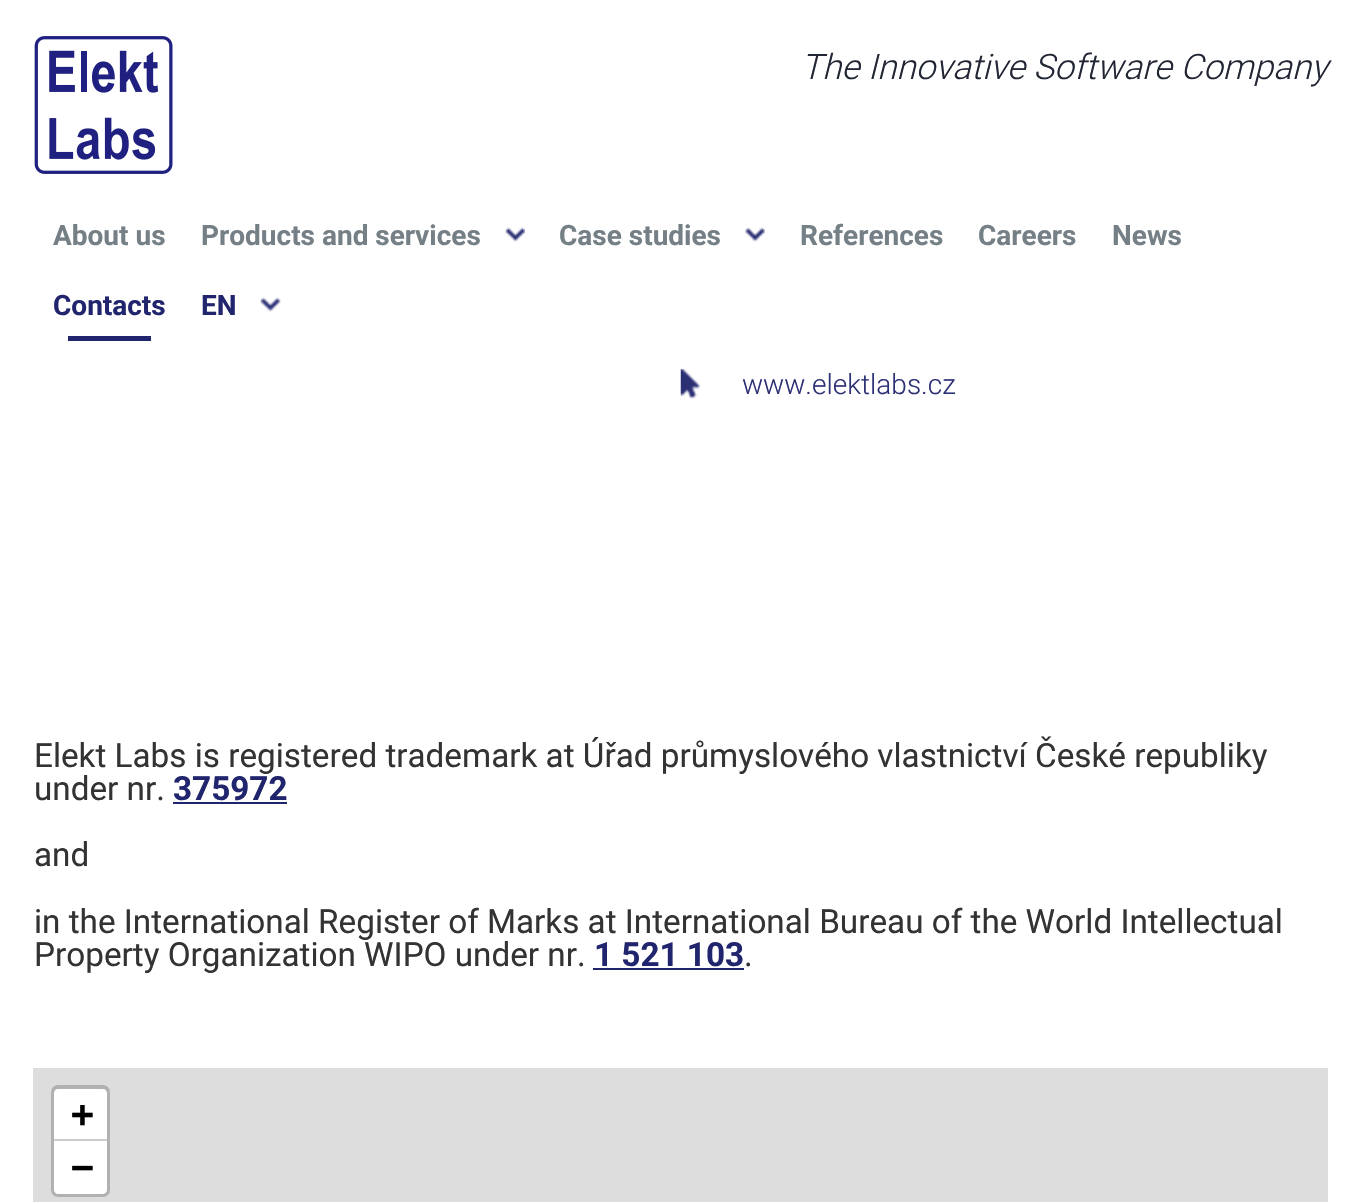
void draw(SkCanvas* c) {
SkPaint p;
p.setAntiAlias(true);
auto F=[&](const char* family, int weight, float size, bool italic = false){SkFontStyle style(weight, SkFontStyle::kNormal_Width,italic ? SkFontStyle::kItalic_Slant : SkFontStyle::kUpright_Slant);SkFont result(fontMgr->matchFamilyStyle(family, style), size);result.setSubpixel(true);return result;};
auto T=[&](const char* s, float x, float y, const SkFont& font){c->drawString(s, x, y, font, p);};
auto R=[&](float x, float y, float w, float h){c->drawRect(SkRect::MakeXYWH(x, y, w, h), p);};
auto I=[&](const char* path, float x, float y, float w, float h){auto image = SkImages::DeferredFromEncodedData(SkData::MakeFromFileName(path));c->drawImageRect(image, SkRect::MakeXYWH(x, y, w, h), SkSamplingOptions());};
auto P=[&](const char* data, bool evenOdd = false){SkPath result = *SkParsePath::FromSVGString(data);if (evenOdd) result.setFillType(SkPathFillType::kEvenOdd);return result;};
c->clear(0xffffffff);
I("1.png",34,36,139,138);
auto f1 = F("Roboto",300,35,true);
p.setColor(0xff222534);
T("The Innovative Software Company",801,79,f1);
auto f2 = F("Roboto",700,28);
p.setColor(0xff747f86);
T("About us",53,245,f2);
T("Products and services",201,245,f2);
I("2.png",505,227,20,15);
T("Case studies",559,245,f2);
I("3.png",745,227,20,15);
T("References",800,245,f2);
T("Careers",978,245,f2);
T("News",1112,245,f2);
p.setColor(0xff21256d);
T("Contacts",53,315,f2);
R(68,336,83,5);
T("EN",201,315,f2);
I("4.png",260,297,21,15);
I("5.png",680,369,21,30);
auto f3 = F("Roboto",300,28);
p.setColor(0xff2b2f74);
T("www.elektlabs.cz",742,394,f3);
auto f4 = F("Roboto",400,33.25);
p.setColor(0xff333333);
T("Elekt Labs is registered trademark at Úřad průmyslového vlastnictví České republiky",34,767,f4);
T("under nr.",34,800,f4);
auto f5 = F("Roboto",700,33.25);
p.setColor(0xff21256d);
T("375972",173,800,f5);
R(173,802,114,2);
p.setColor(0xff333333);
T("and",34,866,f4);
T("in the International Register of Marks at International Bureau of the World Intellectual",34,933,f4);
T("Property Organization WIPO under nr.",34,966,f4);
p.setColor(0xff21256d);
T("1 521 103",594,966,f5);
R(593,968,151,2);
p.setColor(0xff333333);
T(".",744,966,f4);
p.setColor(0xffdddddd);
R(33,1068,1295,134);
p.setStroke(true);
p.setStrokeWidth(4);
p.setColor(0xffb1b1b1);
c->drawRoundRect(SkRect::MakeXYWH(53,1087,55,108),5,5,p);
p.setStroke(false);
p.setColor(0xffffffff);
c->drawPath(P("M58 1089h45c2 0 4 2 4 4v48h-53v-48c0-2 2-4 4-4z"),p);
p.setColor(0xffcccccc);
R(54,1139,53,2);
auto f6 = F("DejaVu Sans Mono",700,38);
p.setColor(0xff000000);
T("+",71,1127,f6);
p.setColor(0xffffffff);
c->drawPath(P("M54 1141h53v49c0 2-2 4-4 4h-45c-2 0-4-2-4-4z"),p);
p.setColor(0xff000000);
T("−",71,1180,f6);
}
